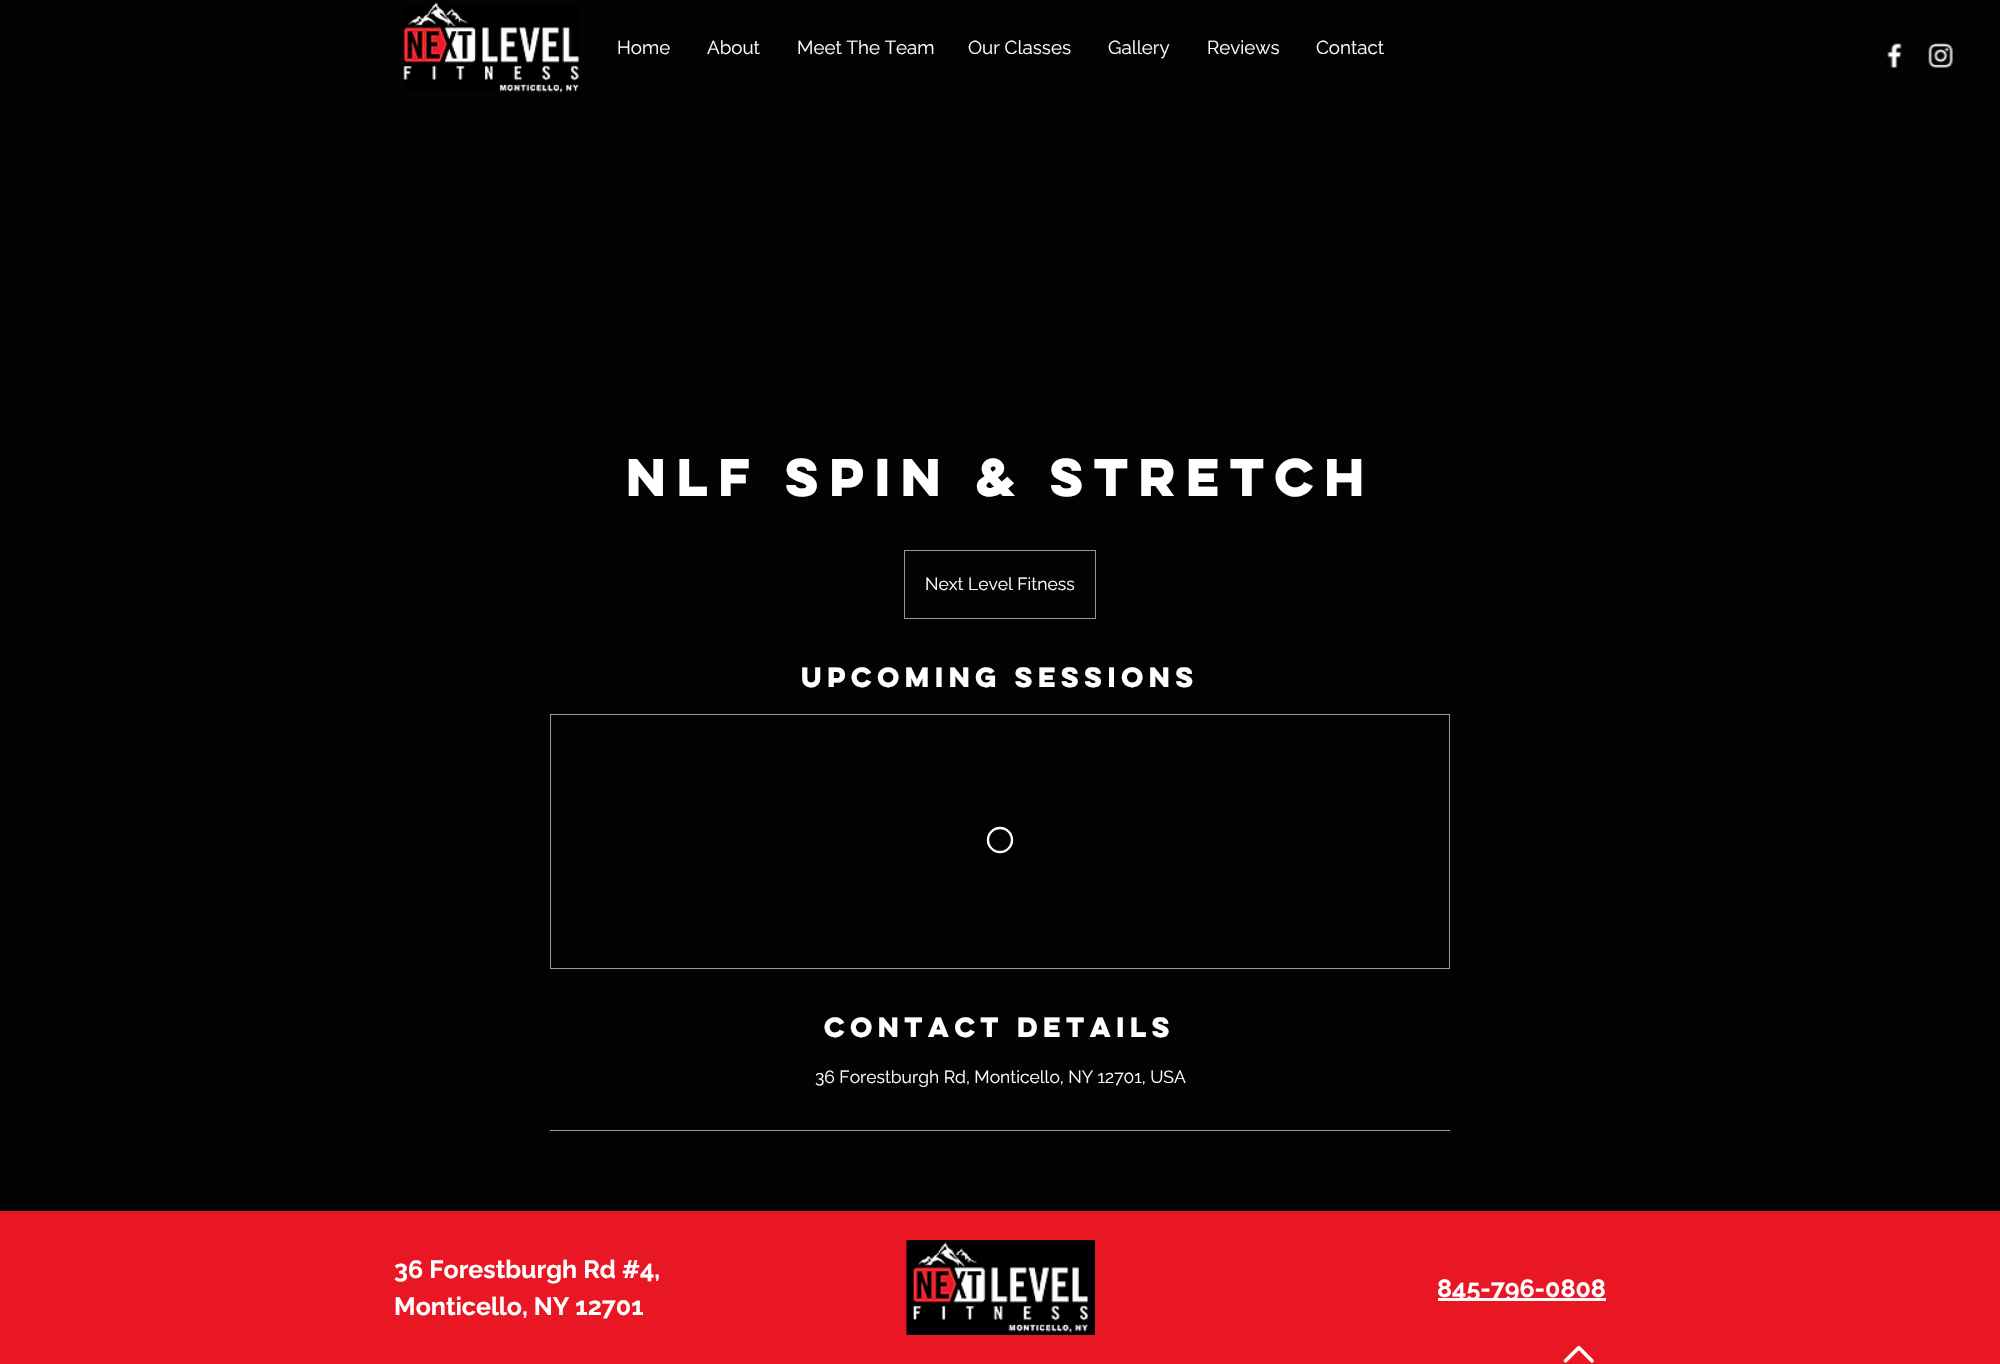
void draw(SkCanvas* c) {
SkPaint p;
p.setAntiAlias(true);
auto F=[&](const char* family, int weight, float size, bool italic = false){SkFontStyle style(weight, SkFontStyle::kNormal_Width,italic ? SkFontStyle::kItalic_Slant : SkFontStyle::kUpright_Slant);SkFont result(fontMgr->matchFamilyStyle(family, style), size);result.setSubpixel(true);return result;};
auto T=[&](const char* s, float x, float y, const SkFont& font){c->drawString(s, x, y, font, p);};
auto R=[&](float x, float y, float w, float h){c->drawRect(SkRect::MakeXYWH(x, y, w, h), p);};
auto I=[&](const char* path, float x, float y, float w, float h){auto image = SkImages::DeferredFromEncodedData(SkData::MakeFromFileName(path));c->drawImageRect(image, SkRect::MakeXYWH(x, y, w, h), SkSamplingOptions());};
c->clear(0xff030303);
I("1.png",403,2,176,91);
auto f1 = F("Raleway",400,18.75);
p.setColor(0xffffffff);
T("Home",617,54,f1);
T("About",707,54,f1);
T("Meet The Team",797,54,f1);
T("Our Classes",968,54,f1);
T("Gallery",1108,54,f1);
T("Reviews",1207,54,f1);
T("Contact",1316,54,f1);
I("2.png",1886,43,16,25);
I("3.png",1928,43,25,25);
auto f2 = F("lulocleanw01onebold",700,47.5);
T("NLF SPIN & STRETCH",626,496,f2);
p.setStroke(true);
p.setStrokeWidth(1);
p.setColor(0xff999999);
c->drawRect(SkRect::MakeXYWH(904.5,550.5,191,68),p);
auto f3 = F("Raleway",400,17.5);
p.setStroke(false);
p.setColor(0xffffffff);
T("Next Level Fitness",925,590,f3);
auto f4 = F("lulocleanw01onebold",700,25);
T("Upcoming Sessions",801,687,f4);
p.setStroke(true);
p.setColor(0xff999999);
c->drawRect(SkRect::MakeXYWH(550.5,714.5,899,254),p);
p.setStrokeWidth(2.4);
p.setColor(0xffffffff);
c->drawCircle(1000,840,12,p);
p.setStroke(false);
T("Contact Details",824,1037,f4);
T("36 Forestburgh Rd, Monticello, NY 12701, USA",815,1083,f3);
p.setColor(0xff999999);
R(550,1130,900,1);
p.setColor(0xffe91624);
R(0,1211,2000,153);
auto f5 = F("Raleway",700,25);
p.setColor(0xffffffff);
T("36 Forestburgh Rd #4,",394,1278,f5);
T("Monticello, NY 12701",394,1315,f5);
I("4.png",906,1240,189,95);
R(1438,1298,168,3);
T("845-796-0808",1437,1297,f5);
I("5.png",1563,1345,31,18);
}
